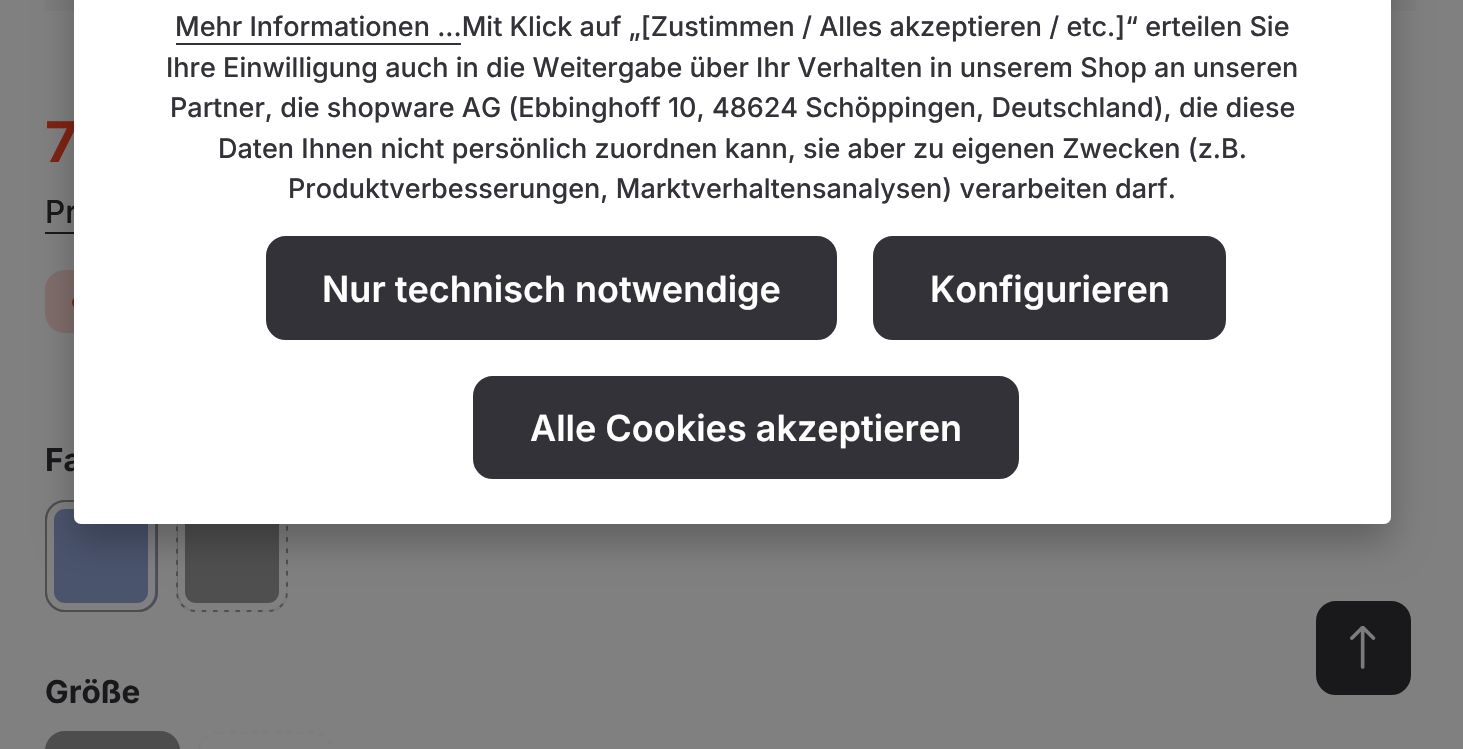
void draw(SkCanvas* c) {
SkPaint p;
p.setAntiAlias(true);
auto F=[&](const char* family, int weight, float size, bool italic = false){SkFontStyle style(weight, SkFontStyle::kNormal_Width,italic ? SkFontStyle::kItalic_Slant : SkFontStyle::kUpright_Slant);SkFont result(fontMgr->matchFamilyStyle(family, style), size);result.setSubpixel(true);return result;};
auto T=[&](const char* s, float x, float y, const SkFont& font){c->drawString(s, x, y, font, p);};
auto R=[&](float x, float y, float w, float h){c->drawRect(SkRect::MakeXYWH(x, y, w, h), p);};
auto Q=[&](float x, float y, float w, float h, float radius){c->drawRoundRect(SkRect::MakeXYWH(x, y, w, h), radius, radius, p);};
auto I=[&](const char* path, float x, float y, float w, float h){auto image = SkImages::DeferredFromEncodedData(SkData::MakeFromFileName(path));c->drawImageRect(image, SkRect::MakeXYWH(x, y, w, h), SkSamplingOptions());};
auto P=[&](const char* data, bool evenOdd = false){SkPath result = *SkParsePath::FromSVGString(data);if (evenOdd) result.setFillType(SkPathFillType::kEvenOdd);return result;};
c->clear(0xff808080);
p.setColor(0xff7c7c7c);
R(45,0,1371,11);
auto f1 = F("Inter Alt",700,56);
p.setColor(0xff7d2416);
T("7",45,162,f1);
auto f2 = F("Inter",500,31.5);
p.setColor(0xff19191c);
T("Pr",45,223,f2);
R(45,232,29,2);
p.setColor(0x337d2416);
Q(45,270,362,63,20);
p.setColor(0xff7d2416);
c->drawCircle(77.5,302.5,5.5,p);
auto f3 = F("Inter",700,31.5);
p.setColor(0xff19191c);
T("Fa",45,471,f3);
p.setColor(0xff4a546d);
Q(45,500,113,112,20);
p.setStroke(true);
p.setStrokeWidth(7);
p.setColor(0xff808080);
c->drawRoundRect(SkRect::MakeXYWH(50.5,505.5,101,101),14.5,14.5,p);
p.setStrokeWidth(2);
p.setColor(0xff4d4d4e);
c->drawRoundRect(SkRect::MakeXYWH(46,501,111,110),19,19,p);
p.setStroke(false);
p.setColor(0xff4f4f4f);
Q(176,500,112,112,20);
p.setStroke(true);
p.setStrokeWidth(7);
p.setColor(0xff808080);
c->drawRoundRect(SkRect::MakeXYWH(181.5,505.5,101,101),14.5,14.5,p);
p.setStrokeWidth(2.2);
p.setColor(0xff7d7d7b);
p.setPathEffect(SkDashPathEffect::Make({{6.75f,4.5f}}, 0));
c->drawPath(P("M196 500.5h72c10.5 0 19 8.5 19 19.5v72c0 10.5-8.5 19-19 19h-72c-11 0-19.5-8.5-19.5-19v-72c0-11 8.5-19.5 19.5-19.5z"),p);
p.setPathEffect(nullptr);
p.setStroke(false);
p.setColor(0xff19191c);
T("Größe",45,703,f3);
p.setColor(0xff4d4d4e);
c->drawRoundRect(SkRect::MakeXYWH(46,732,133,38),19,19,p);
p.setStroke(true);
p.setStrokeWidth(2);
c->drawRoundRect(SkRect::MakeXYWH(46,732,133,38),19,19,p);
p.setStrokeWidth(2.2);
p.setColor(0xff7d7d7b);
p.setPathEffect(SkDashPathEffect::Make({{6.75f,4.5f}}, 0));
c->drawPath(P("M218 732.5h95c10.5 0 19 8.5 19 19v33.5c0 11-8.5 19.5-19 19.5h-95c-10.5 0-19-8.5-19-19.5v-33.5c0-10.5 8.5-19 19-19z"),p);
p.setPathEffect(nullptr);
p.setStroke(false);
p.setColor(0x40000000);
p.setMaskFilter(SkMaskFilter::MakeBlur(kNormal_SkBlurStyle, 18));
c->drawRoundRect(SkRect::MakeXYWH(74,-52,1317,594),7,7,p);
p.setMaskFilter(nullptr);
p.setColor(0xffffffff);
Q(74,-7,1317,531,7);
auto f4 = F("Inter",500,27);
p.setColor(0xff323238);
T("Mehr Informationen ...Mit Klick auf „[Zustimmen / Alles akzeptieren / etc.]“ erteilen Sie",175,36,f4);
R(176,43,285,2);
T("Ihre Einwilligung auch in die Weitergabe über Ihr Verhalten in unserem Shop an unseren",166,77,f4);
T("Partner, die shopware AG (Ebbinghoff 10, 48624 Schöppingen, Deutschland), die diese",170,117,f4);
T("Daten Ihnen nicht persönlich zuordnen kann, sie aber zu eigenen Zwecken (z.B.",218,158,f4);
T("Produktverbesserungen, Marktverhaltensanalysen) verarbeiten darf.",288,198,f4);
c->drawRoundRect(SkRect::MakeXYWH(267,237,569,102),19,19,p);
p.setStroke(true);
p.setStrokeWidth(2);
c->drawRoundRect(SkRect::MakeXYWH(267,237,569,102),19,19,p);
auto f5 = F("Inter",600,36);
p.setStroke(false);
p.setColor(0xffffffff);
T("Nur technisch notwendige",322,302,f5);
p.setColor(0xff323238);
c->drawRoundRect(SkRect::MakeXYWH(874,237,351,102),19,19,p);
p.setStroke(true);
c->drawRoundRect(SkRect::MakeXYWH(874,237,351,102),19,19,p);
p.setStroke(false);
p.setColor(0xffffffff);
T("Konfigurieren",930,302,f5);
p.setColor(0xff323238);
c->drawRoundRect(SkRect::MakeXYWH(474,377,544,101),19,19,p);
p.setStroke(true);
c->drawRoundRect(SkRect::MakeXYWH(474,377,544,101),19,19,p);
p.setStroke(false);
p.setColor(0xffffffff);
T("Alle Cookies akzeptieren",530,441,f5);
p.setColor(0xff19191c);
c->drawRoundRect(SkRect::MakeXYWH(1317,602,93,92),19,19,p);
p.setStroke(true);
c->drawRoundRect(SkRect::MakeXYWH(1317,602,93,92),19,19,p);
I("1.png",1350,626,26,43);
}
